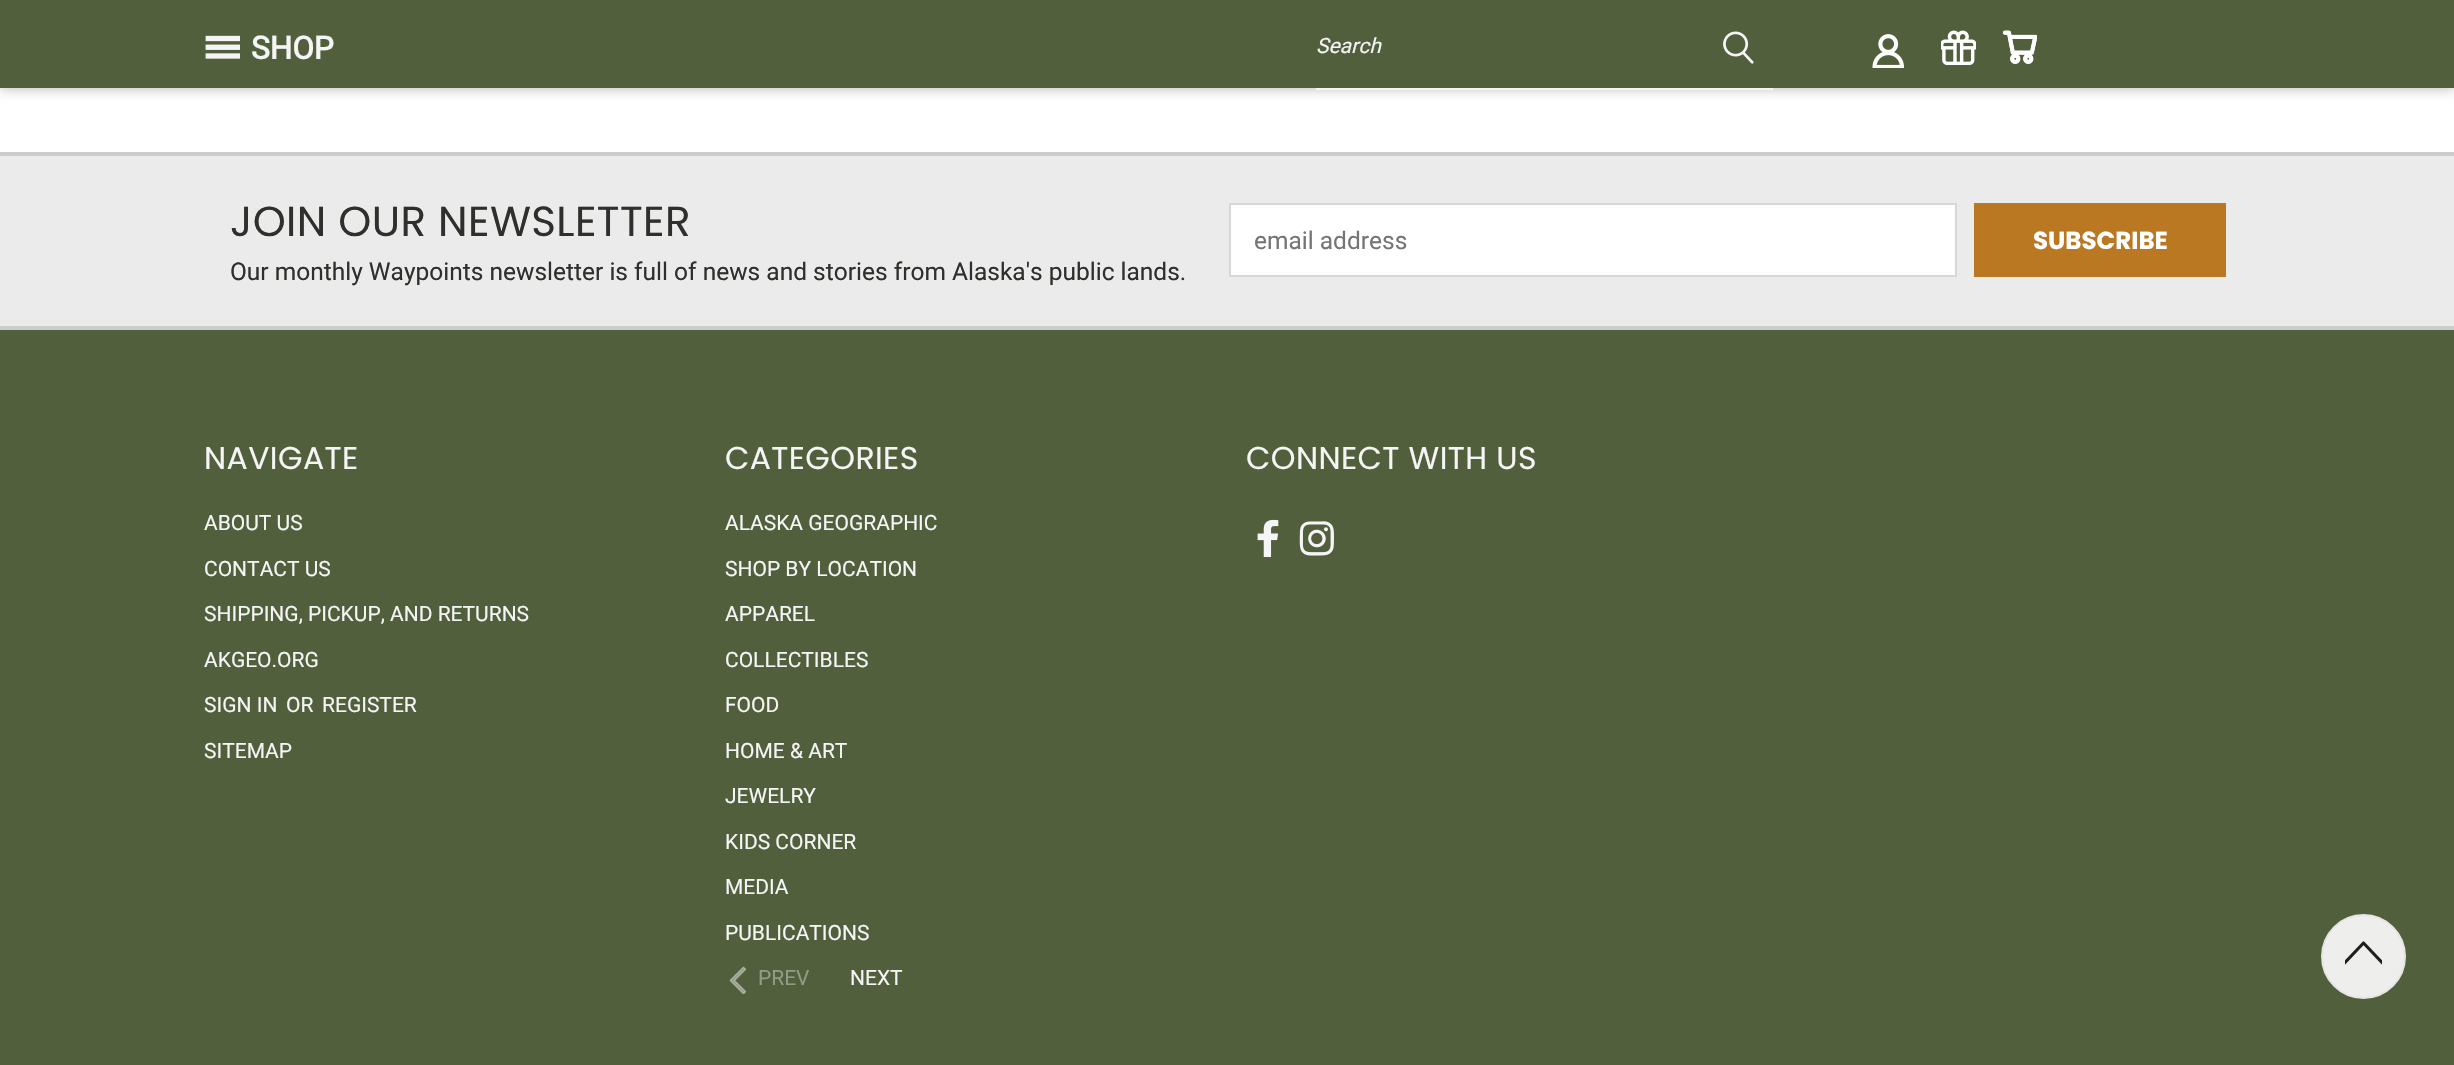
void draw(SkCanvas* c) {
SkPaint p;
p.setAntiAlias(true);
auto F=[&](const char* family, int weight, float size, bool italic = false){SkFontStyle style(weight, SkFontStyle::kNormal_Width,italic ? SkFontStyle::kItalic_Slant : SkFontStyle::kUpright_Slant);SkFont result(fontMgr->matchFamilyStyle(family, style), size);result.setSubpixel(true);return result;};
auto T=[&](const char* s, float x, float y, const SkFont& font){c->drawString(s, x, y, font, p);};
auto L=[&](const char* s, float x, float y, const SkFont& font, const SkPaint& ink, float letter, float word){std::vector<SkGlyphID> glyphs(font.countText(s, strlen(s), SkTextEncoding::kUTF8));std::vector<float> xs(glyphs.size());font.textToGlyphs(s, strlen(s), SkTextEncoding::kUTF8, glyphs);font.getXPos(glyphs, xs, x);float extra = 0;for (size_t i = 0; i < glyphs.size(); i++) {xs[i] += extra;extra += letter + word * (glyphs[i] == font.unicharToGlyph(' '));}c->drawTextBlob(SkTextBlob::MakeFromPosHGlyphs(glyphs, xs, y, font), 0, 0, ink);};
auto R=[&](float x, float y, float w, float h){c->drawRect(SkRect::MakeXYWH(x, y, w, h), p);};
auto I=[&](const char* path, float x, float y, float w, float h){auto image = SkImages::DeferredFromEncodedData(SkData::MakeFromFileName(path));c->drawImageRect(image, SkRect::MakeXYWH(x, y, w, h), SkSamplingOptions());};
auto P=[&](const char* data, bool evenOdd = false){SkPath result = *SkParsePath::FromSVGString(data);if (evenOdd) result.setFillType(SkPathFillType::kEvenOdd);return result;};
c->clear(0xffffffff);
p.setColor(0x4d000000);
p.setMaskFilter(SkMaskFilter::MakeBlur(kNormal_SkBlurStyle, 6));
c->drawRect(SkRect::MakeXYWH(0,0,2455,88),p);
p.setMaskFilter(nullptr);
p.setColor(0xff525f3c);
R(0,0,2454,88);
I("1.png",205,35,35,24);
auto f1 = F("Roboto",700,31.5);
p.setColor(0xfff5f5f5);
T("SHOP",251,59,f1);
R(1316,88,457,2);
auto f2 = F("Roboto",400,21,true);
T("Search",1316,53,f2);
I("2.png",1723,31,31,33);
I("3.png",1872,34,32,34);
I("4.png",1941,30,35,35);
I("5.png",2002,30,35,34);
p.setColor(0xffebebeb);
R(0,156,2454,170);
p.setColor(0xffcdcccc);
R(0,152,2454,4);
auto f3 = F("Poppins",400,42);
p.setColor(0xff2f2f2b);
L("JOIN OUR NEWSLETTER",230,236,f3,p,.4,0);
auto f4 = F("Roboto",400,24.5);
T("Our monthly Waypoints newsletter is full of news and stories from Alaska's public lands.",230,280,f4);
p.setColor(0xffffffff);
c->drawRect(SkRect::MakeXYWH(1230,204,726,72),p);
p.setStroke(true);
p.setStrokeWidth(2);
p.setColor(0xffd7d7d7);
c->drawRect(SkRect::MakeXYWH(1230,204,726,72),p);
p.setStroke(false);
p.setColor(0xff757575);
T("email address",1254,249,f4);
p.setColor(0xffba7823);
R(1974,203,252,74);
auto f5 = F("Poppins",700,24.5);
p.setColor(0xffffffff);
T("SUBSCRIBE",2033,249,f5);
p.setColor(0xff525f3c);
R(0,330,2454,735);
p.setColor(0xffcdcccc);
R(0,326,2454,4);
auto f6 = F("Poppins",400,31.5);
p.setColor(0xfff5f5f5);
L("NAVIGATE",204,469,f6,p,.4,0);
auto f7 = F("Roboto",400,21);
T("ABOUT US",204,530,f7);
T("CONTACT US",204,576,f7);
T("SHIPPING, PICKUP, AND RETURNS",204,621,f7);
T("AKGEO.ORG",204,667,f7);
T("SIGN IN",204,712,f7);
T("OR",286,712,f7);
T("REGISTER",322,712,f7);
T("SITEMAP",204,758,f7);
L("CATEGORIES",725,469,f6,p,.4,0);
T("ALASKA GEOGRAPHIC",725,530,f7);
T("SHOP BY LOCATION",725,576,f7);
T("APPAREL",725,621,f7);
T("COLLECTIBLES",725,667,f7);
T("FOOD",725,712,f7);
T("HOME & ART",725,758,f7);
T("JEWELRY",725,803,f7);
T("KIDS CORNER",725,849,f7);
T("MEDIA",725,894,f7);
T("PUBLICATIONS",725,940,f7);
I("6.png",729,966,18,28);
p.setColor(0xff939b86);
T("PREV",758,985,f7);
p.setColor(0xfff5f5f5);
T("NEXT",850,985,f7);
L("CONNECT WITH US",1246,469,f6,p,.4,0);
I("7.png",1257,519,22,38);
I("8.png",1299,521,35,35);
p.setColor(0xffeeefec);
c->drawCircle(2363.5,956.5,41.5,p);
p.setStroke(true);
p.setColor(0xffe5e5e5);
c->drawCircle(2363.5,956.5,41.5,p);
c->save();
c->clipPath(P("M2382 940.5v37h-37v-37z"),true);
p.setStrokeWidth(3.1);
p.setStrokeCap(SkPaint::kRound_Cap);
p.setStrokeJoin(SkPaint::kRound_Join);
p.setColor(0xff1f1f1f);
c->drawPath(P("M2394 975l-30.5-32l-30.5 32"),p);
c->restore();
}
